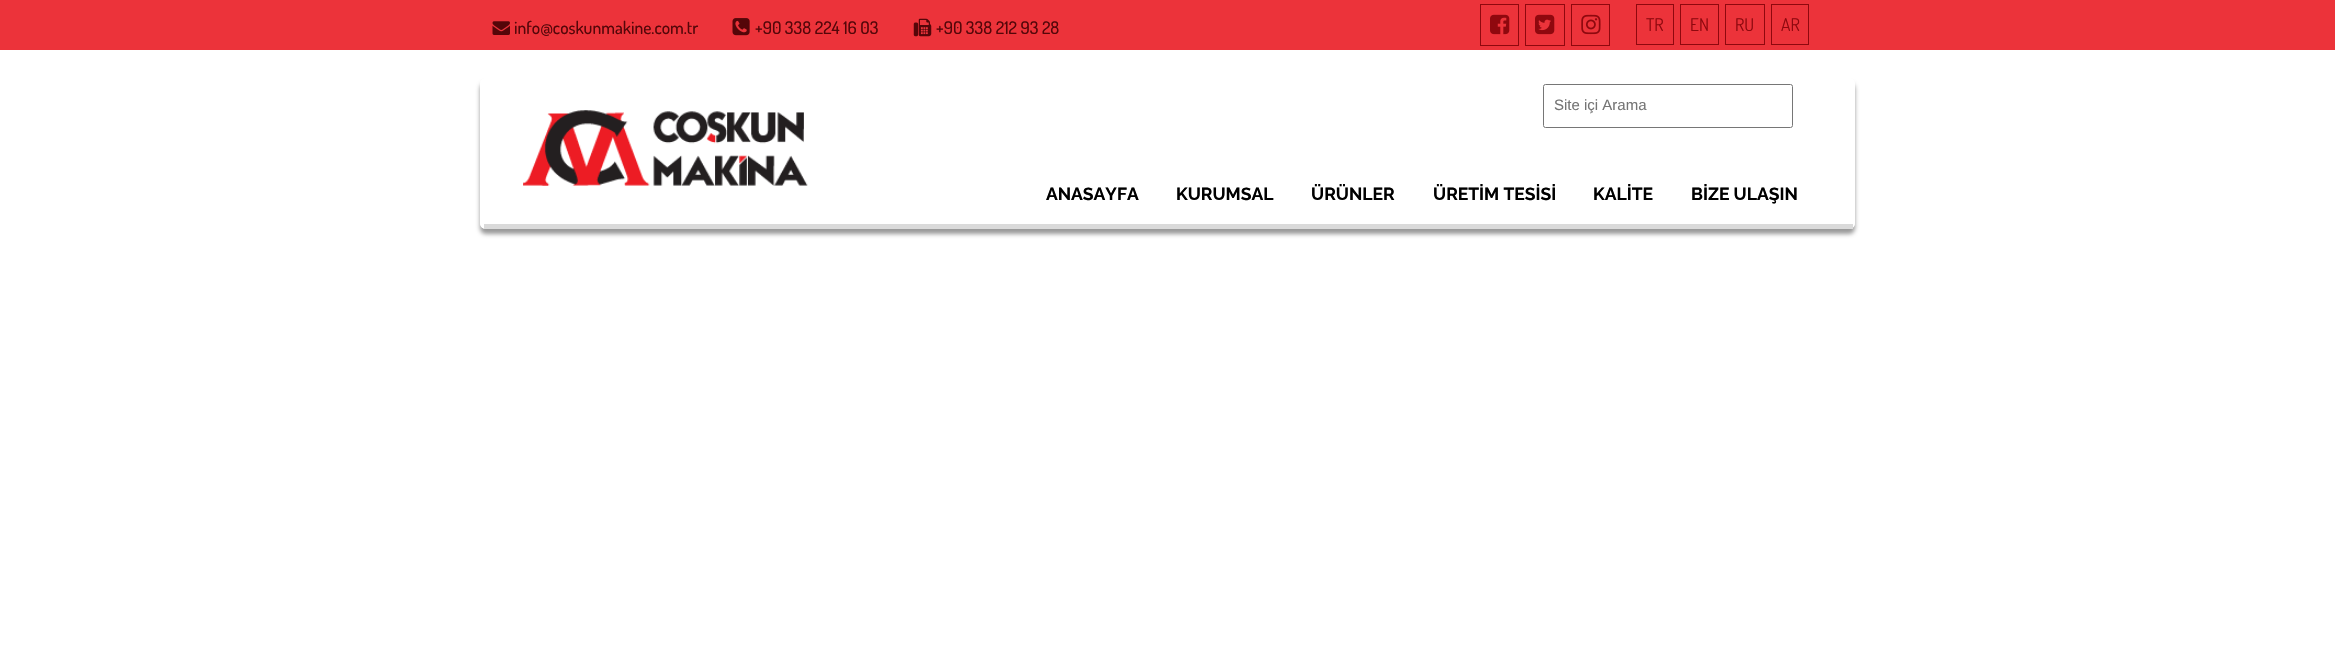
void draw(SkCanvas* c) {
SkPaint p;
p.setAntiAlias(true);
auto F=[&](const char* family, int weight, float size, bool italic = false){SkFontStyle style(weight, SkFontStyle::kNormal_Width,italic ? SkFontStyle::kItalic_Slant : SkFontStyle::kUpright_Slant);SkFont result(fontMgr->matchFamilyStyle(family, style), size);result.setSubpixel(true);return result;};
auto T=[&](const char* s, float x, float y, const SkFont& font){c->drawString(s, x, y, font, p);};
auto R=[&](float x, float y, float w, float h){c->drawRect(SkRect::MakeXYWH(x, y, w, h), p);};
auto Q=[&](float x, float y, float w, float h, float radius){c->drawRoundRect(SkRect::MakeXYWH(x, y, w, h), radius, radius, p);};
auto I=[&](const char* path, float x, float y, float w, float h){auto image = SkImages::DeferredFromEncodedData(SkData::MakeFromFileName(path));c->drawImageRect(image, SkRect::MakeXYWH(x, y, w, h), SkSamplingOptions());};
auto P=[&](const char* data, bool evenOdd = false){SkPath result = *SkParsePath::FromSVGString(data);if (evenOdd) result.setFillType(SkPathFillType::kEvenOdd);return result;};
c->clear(0xffffffff);
p.setColor(0xffec333a);
R(0,0,2335,50);
I("1.png",492,21,18,14);
auto f1 = F("Dosis",500,17.5);
p.setColor(0xff550609);
T("info@coskunmakine.com.tr",514,34,f1);
I("2.png",732,18,18,18);
T("+90 338 224 16 03",755,34,f1);
I("3.png",913,18,19,19);
T("+90 338 212 93 28",936,34,f1);
p.setStroke(true);
p.setStrokeWidth(1);
p.setColor(0xff8f080e);
c->drawRect(SkRect::MakeXYWH(1480.5,4.5,38,41),p);
I("4.png",1490,14,20,21);
c->drawRect(SkRect::MakeXYWH(1525.5,4.5,39,41),p);
I("5.png",1535,14,20,21);
c->drawRect(SkRect::MakeXYWH(1571.5,4.5,38,41),p);
I("6.png",1581,14,20,21);
c->drawRect(SkRect::MakeXYWH(1636.5,4.5,37,40),p);
auto f2 = F("Dosis",400,17.5);
p.setStroke(false);
T("TR",1646,31,f2);
p.setStroke(true);
c->drawRect(SkRect::MakeXYWH(1680.5,4.5,38,40),p);
p.setStroke(false);
T("EN",1690,31,f2);
p.setStroke(true);
c->drawRect(SkRect::MakeXYWH(1725.5,4.5,39,40),p);
p.setStroke(false);
T("RU",1735,31,f2);
p.setStroke(true);
c->drawRect(SkRect::MakeXYWH(1771.5,4.5,37,40),p);
p.setStroke(false);
T("AR",1781,31,f2);
c->save();
c->clipPath(P("M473 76h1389v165h-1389zm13 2h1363c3.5 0 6 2.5 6 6v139c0 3.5-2.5 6-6 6h-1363c-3.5 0-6-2.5-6-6v-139c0-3.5 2.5-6 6-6z",true),true);
p.setColor(0x66000000);
p.setMaskFilter(SkMaskFilter::MakeBlur(kNormal_SkBlurStyle, 2));
c->drawRoundRect(SkRect::MakeXYWH(480,83,1375,151),6,6,p);
p.setMaskFilter(nullptr);
c->restore();
p.setColor(0xe6ffffff);
Q(480,78,1375,151,6);
p.setColor(0xffdadada);
R(484,224,1369,5);
p.setStroke(true);
p.setColor(0xff767676);
c->drawRoundRect(SkRect::MakeXYWH(1543.5,84.5,249,43),2,2,p);
auto f3 = F("Liberation Sans",400,15);
p.setStroke(false);
p.setColor(0xff757575);
T("Site içi Arama",1554,110,f3);
I("7.png",523,110,285,76);
auto f4 = F("Raleway",700,17.5);
p.setColor(0xff000000);
T("ANASAYFA",1046,200,f4);
T("KURUMSAL",1176,200,f4);
T("ÜRÜNLER",1311,200,f4);
T("ÜRETİM TESİSİ",1433,200,f4);
T("KALİTE",1593,200,f4);
T("BİZE ULAŞIN",1691,200,f4);
}
